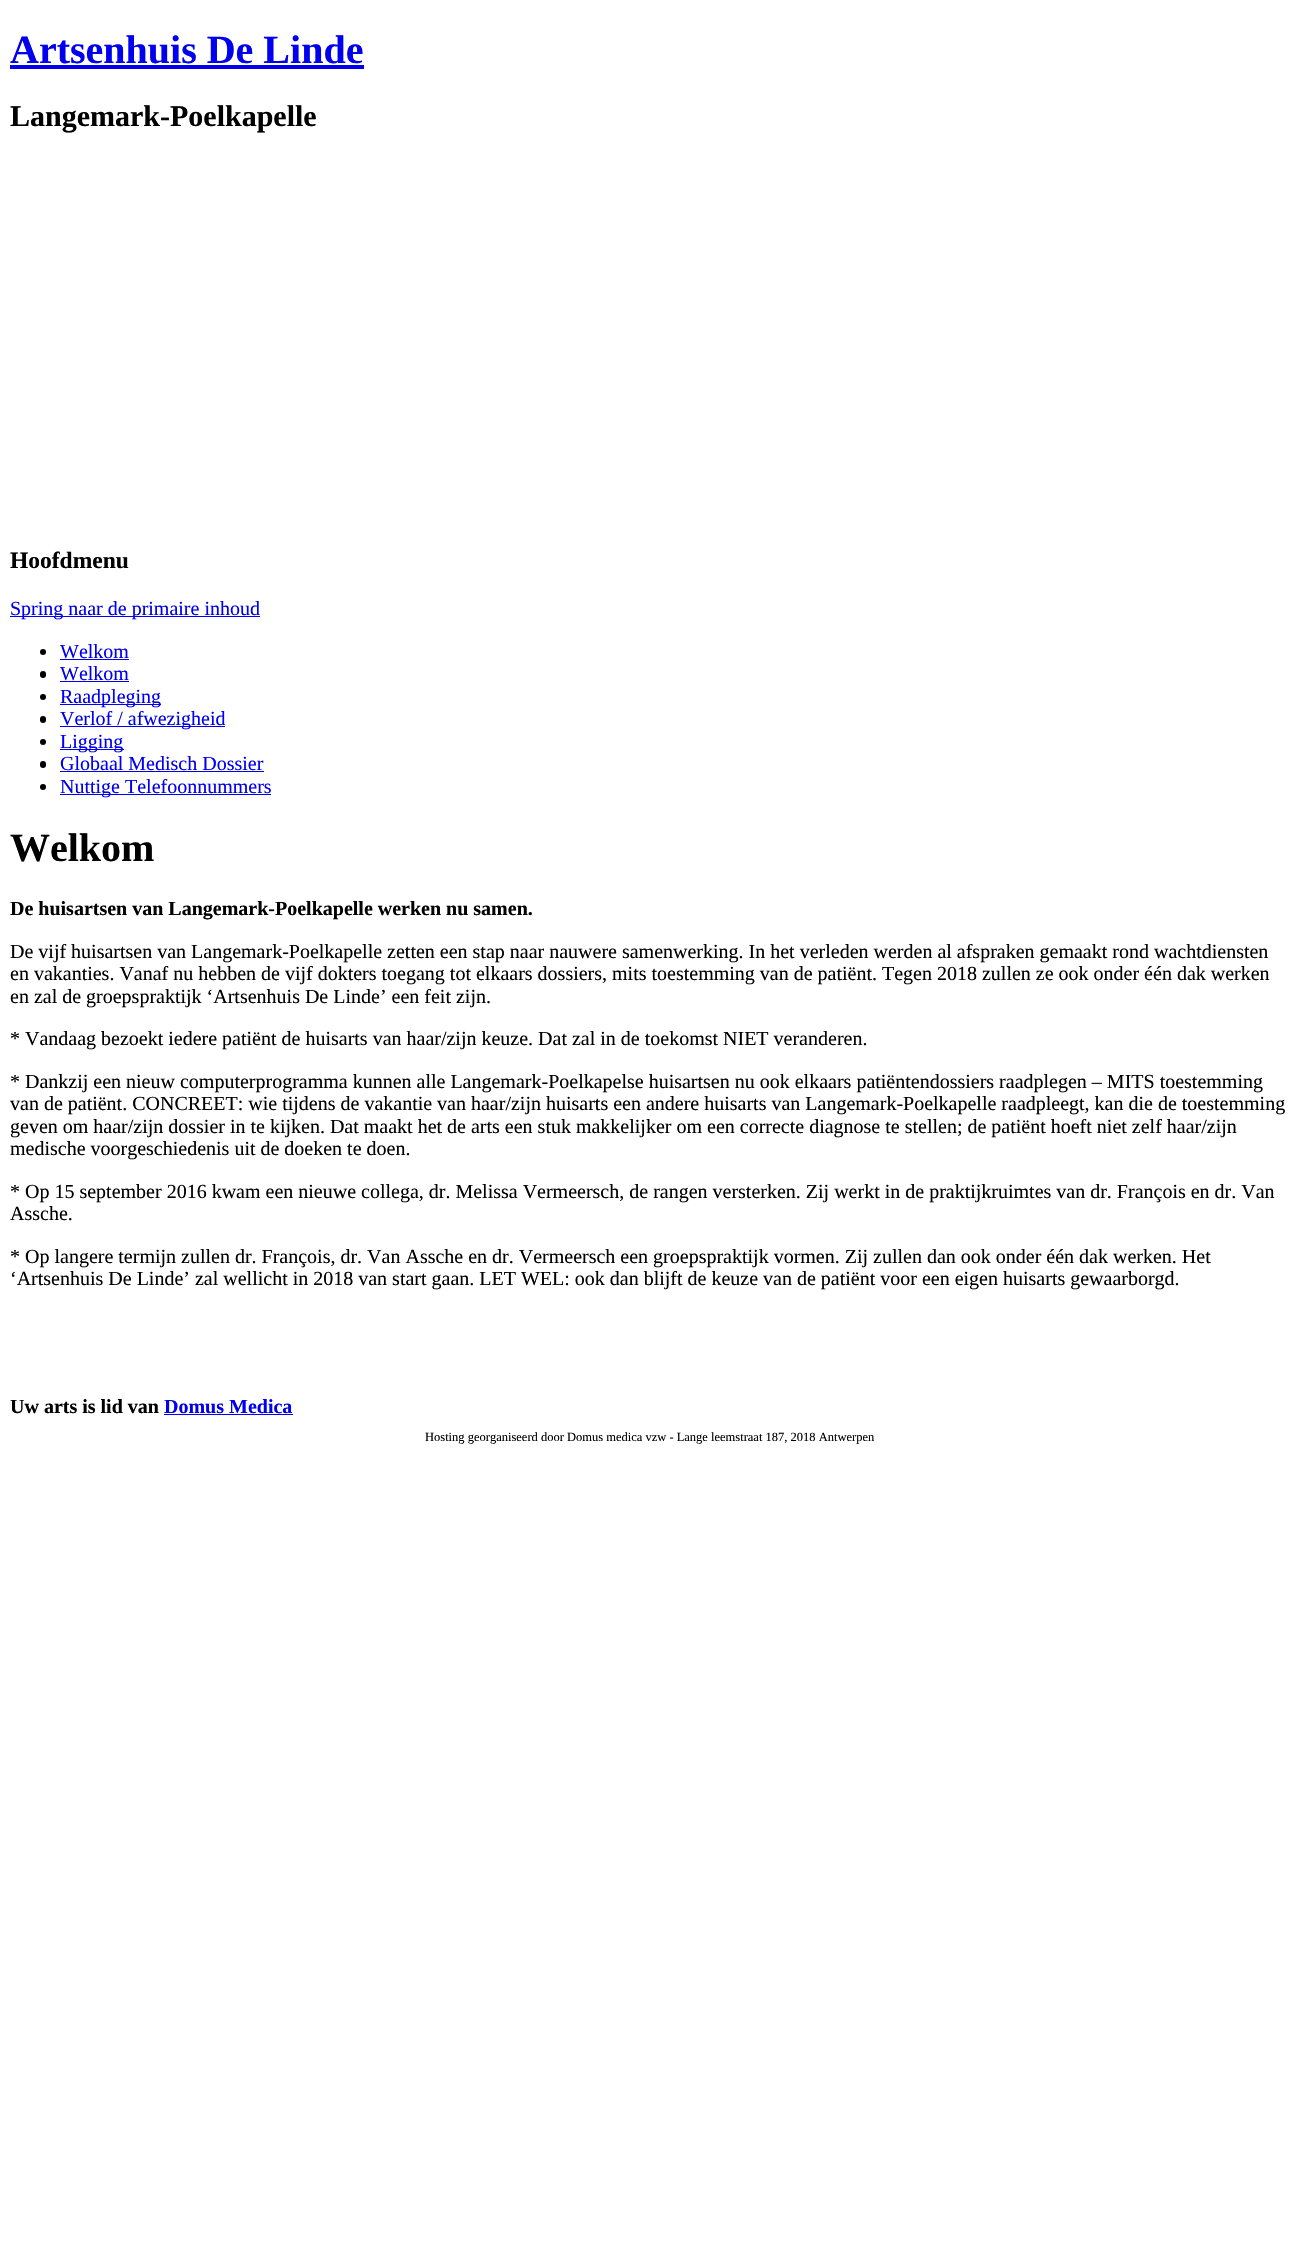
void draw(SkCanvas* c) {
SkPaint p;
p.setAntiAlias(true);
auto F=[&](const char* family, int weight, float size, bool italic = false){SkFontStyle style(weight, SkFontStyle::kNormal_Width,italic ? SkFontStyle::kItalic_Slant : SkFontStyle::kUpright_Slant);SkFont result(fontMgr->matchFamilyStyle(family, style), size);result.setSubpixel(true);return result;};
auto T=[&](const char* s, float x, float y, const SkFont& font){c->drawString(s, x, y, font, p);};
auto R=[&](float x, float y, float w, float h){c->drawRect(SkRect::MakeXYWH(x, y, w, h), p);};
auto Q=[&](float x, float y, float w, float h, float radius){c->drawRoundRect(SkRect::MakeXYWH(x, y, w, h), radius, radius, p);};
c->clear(0xffffffff);
auto f1 = F("Liberation Serif",700,40);
p.setColor(0xff0000ee);
T("Artsenhuis De Linde",10,63,f1);
R(10,65,354,4);
auto f2 = F("Liberation Serif",700,30);
p.setColor(0xff000000);
T("Langemark-Poelkapelle",10,126,f2);
auto f3 = F("Liberation Serif",700,23.5);
T("Hoofdmenu",10,568,f3);
p.setColor(0xff0000ee);
R(10,616,250,1);
auto f4 = F("Liberation Serif",400,20);
T("Spring naar de primaire inhoud",10,615,f4);
p.setColor(0xff000000);
c->drawCircle(43,652,3,p);
p.setColor(0xff0000ee);
T("Welkom",60,658,f4);
R(60,659,69,1);
p.setColor(0xff000000);
Q(40,671,6,7,3);
p.setColor(0xff0000ee);
T("Welkom",60,680,f4);
R(60,681,69,1);
p.setColor(0xff000000);
c->drawCircle(43,697,3,p);
p.setColor(0xff0000ee);
R(60,704,101,1);
T("Raadpleging",60,703,f4);
p.setColor(0xff000000);
Q(40,716,6,7,3);
p.setColor(0xff0000ee);
R(60,726,165,1);
T("Verlof / afwezigheid",60,725,f4);
p.setColor(0xff000000);
c->drawCircle(43,742,3,p);
p.setColor(0xff0000ee);
R(60,749,64,1);
T("Ligging",60,748,f4);
p.setColor(0xff000000);
Q(40,761,6,7,3);
p.setColor(0xff0000ee);
T("Globaal Medisch Dossier",60,770,f4);
R(60,771,204,1);
p.setColor(0xff000000);
c->drawCircle(43,787,3,p);
p.setColor(0xff0000ee);
R(60,794,211,1);
T("Nuttige Telefoonnummers",60,793,f4);
p.setColor(0xff000000);
T("Welkom",10,861,f1);
auto f5 = F("Liberation Serif",700,20);
T("De huisartsen van Langemark-Poelkapelle werken nu samen.",10,915,f5);
T("De vijf huisartsen van Langemark-Poelkapelle zetten een stap naar nauwere samenwerking. In het verleden werden al afspraken gemaakt rond wachtdiensten",10,958,f4);
T("en vakanties. Vanaf nu hebben de vijf dokters toegang tot elkaars dossiers, mits toestemming van de patiënt. Tegen 2018 zullen ze ook onder één dak werken",10,980,f4);
T("en zal de groepspraktijk ‘Artsenhuis De Linde’ een feit zijn.",10,1003,f4);
T("* Vandaag bezoekt iedere patiënt de huisarts van haar/zijn keuze. Dat zal in de toekomst NIET veranderen.",10,1045,f4);
T("* Dankzij een nieuw computerprogramma kunnen alle Langemark-Poelkapelse huisartsen nu ook elkaars patiëntendossiers raadplegen – MITS toestemming",10,1088,f4);
T("van de patiënt. CONCREET: wie tijdens de vakantie van haar/zijn huisarts een andere huisarts van Langemark-Poelkapelle raadpleegt, kan die de toestemming",10,1110,f4);
T("geven om haar/zijn dossier in te kijken. Dat maakt het de arts een stuk makkelijker om een correcte diagnose te stellen; de patiënt hoeft niet zelf haar/zijn",10,1133,f4);
T("medische voorgeschiedenis uit de doeken te doen.",10,1155,f4);
T("* Op 15 september 2016 kwam een nieuwe collega, dr. Melissa Vermeersch, de rangen versterken. Zij werkt in de praktijkruimtes van dr. François en dr. Van",10,1198,f4);
T("Assche.",10,1220,f4);
T("* Op langere termijn zullen dr. François, dr. Van Assche en dr. Vermeersch een groepspraktijk vormen. Zij zullen dan ook onder één dak werken. Het",10,1263,f4);
T("‘Artsenhuis De Linde’ zal wellicht in 2018 van start gaan. LET WEL: ook dan blijft de keuze van de patiënt voor een eigen huisarts gewaarborgd.",10,1285,f4);
T("Uw arts is lid van",10,1413,f5);
p.setColor(0xff0000ee);
T("Domus Medica",164,1413,f5);
R(164,1414,129,1);
auto f6 = F("Liberation Serif",400,12.5);
p.setColor(0xff000000);
T("Hosting georganiseerd door Domus medica vzw - Lange leemstraat 187, 2018 Antwerpen",425,1441,f6);
}
